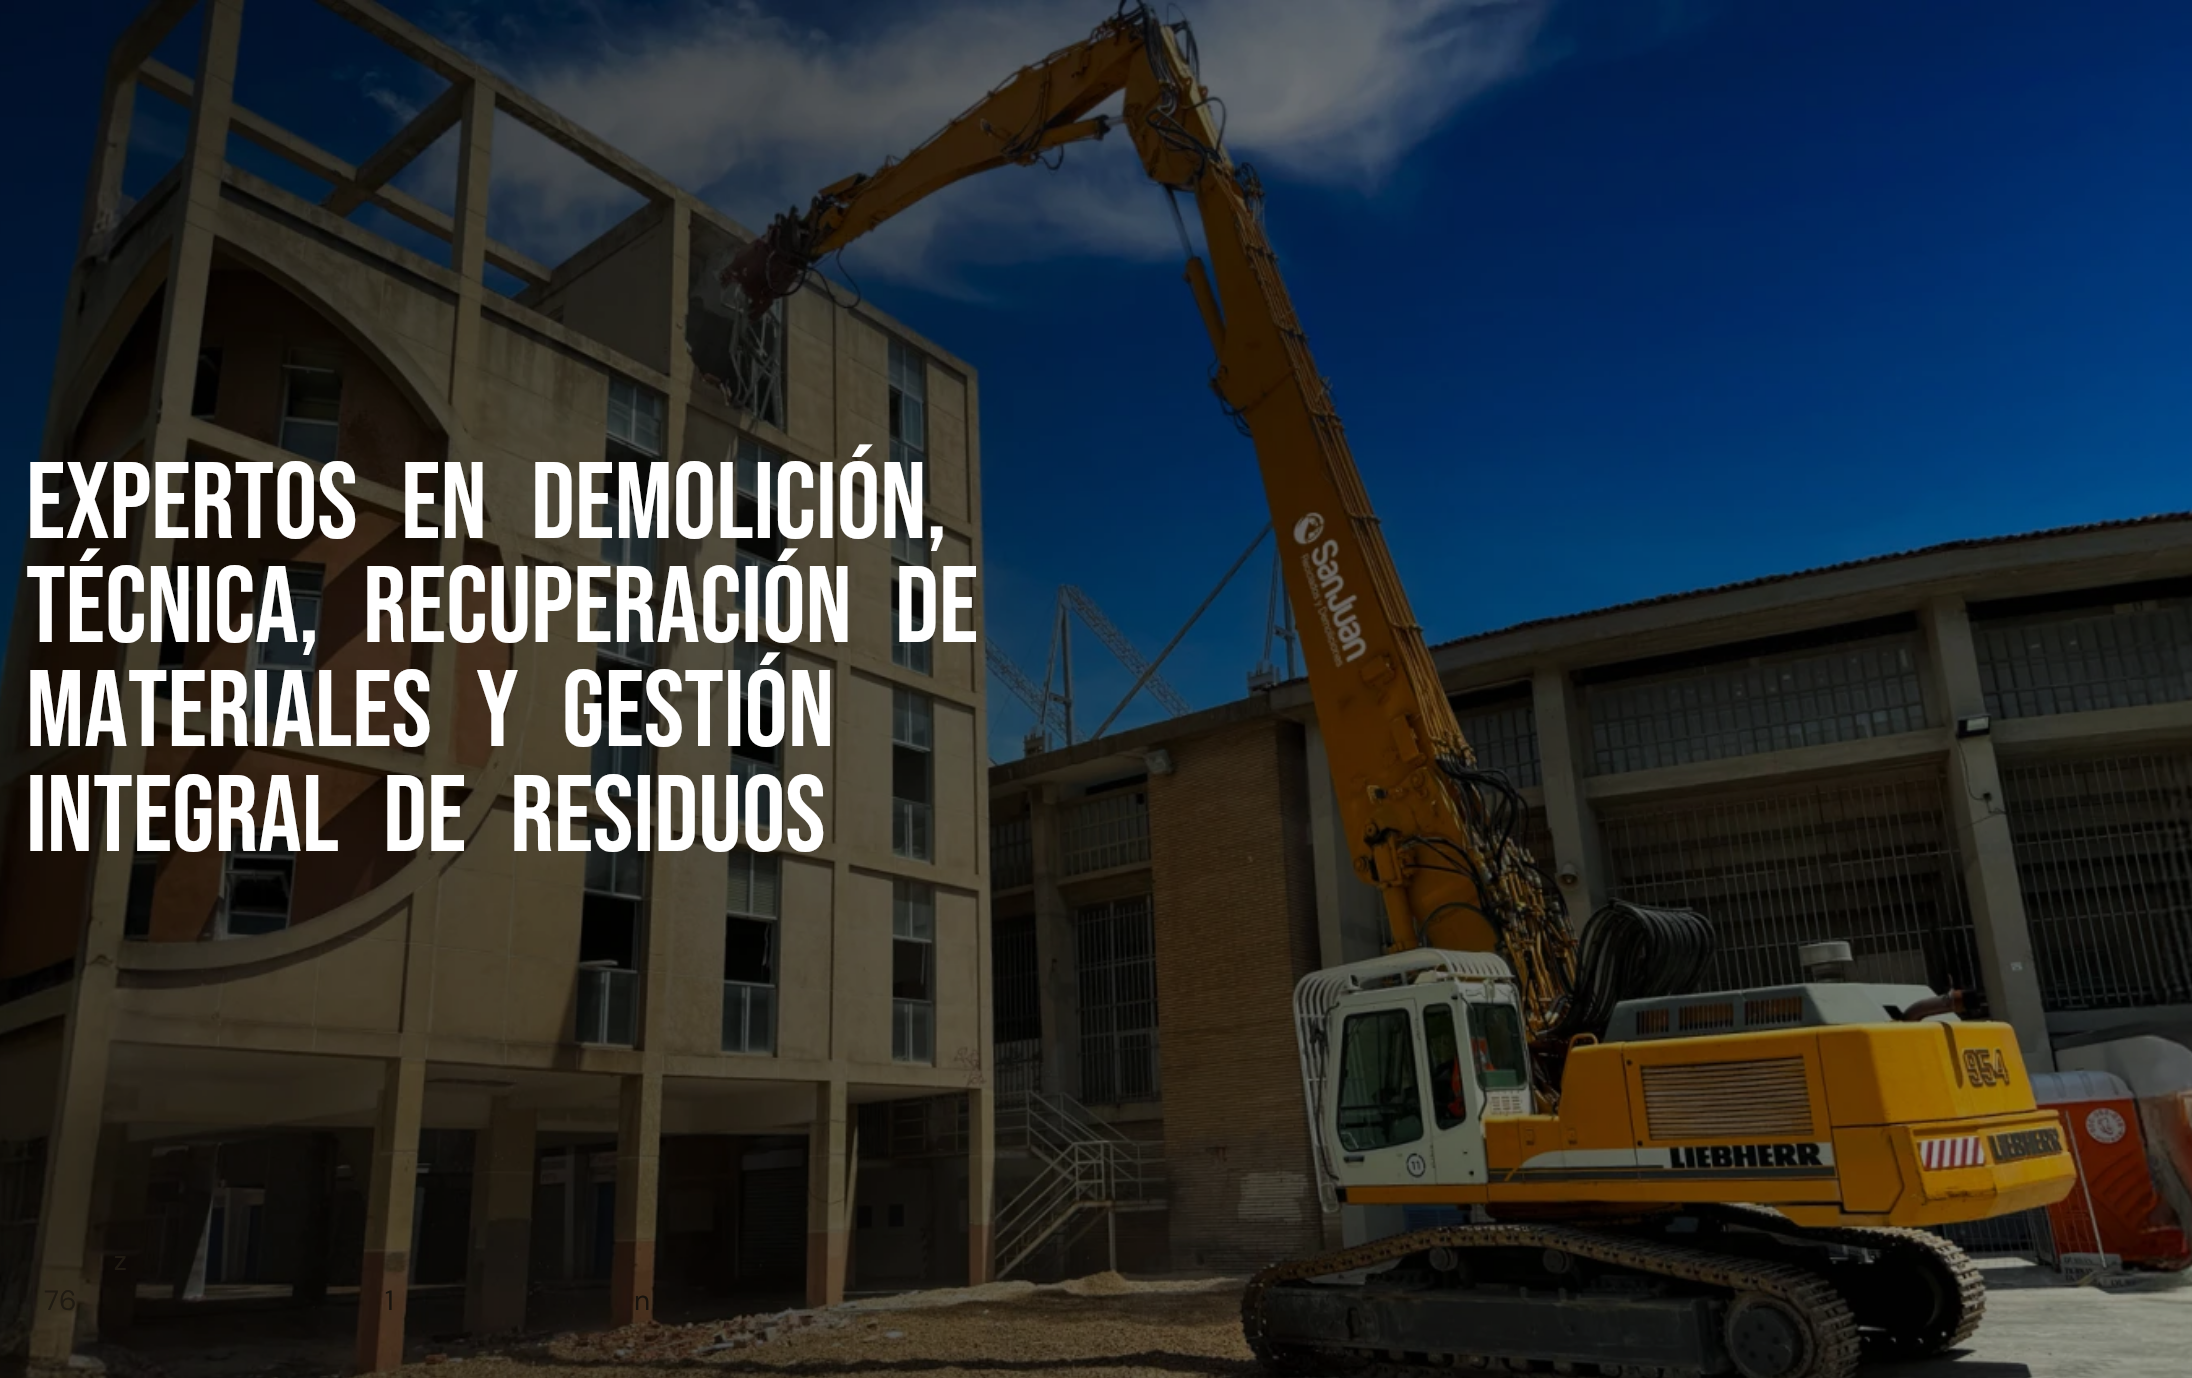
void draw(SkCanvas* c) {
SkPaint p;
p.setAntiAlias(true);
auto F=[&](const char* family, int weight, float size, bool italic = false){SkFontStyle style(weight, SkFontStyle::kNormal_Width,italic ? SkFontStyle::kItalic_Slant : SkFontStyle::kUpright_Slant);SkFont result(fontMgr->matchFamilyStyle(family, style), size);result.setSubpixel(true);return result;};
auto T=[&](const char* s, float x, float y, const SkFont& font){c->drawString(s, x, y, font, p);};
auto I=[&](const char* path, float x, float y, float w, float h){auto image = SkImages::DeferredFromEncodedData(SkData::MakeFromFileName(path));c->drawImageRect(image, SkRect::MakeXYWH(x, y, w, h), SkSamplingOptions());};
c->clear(0xffffffff);
I("1.png",0,0,2192,1378);
auto f1 = F("Bebas Neue",400,108.5);
p.setColor(0xffffffff);
T("Expertos",26,538,f1);
T("en",401,538,f1);
T("demolición,",531,538,f1);
T("técnica,",26,642,f1);
T("recuperación",363,642,f1);
T("de",895,642,f1);
T("materiales",26,746,f1);
T("y",476,746,f1);
T("gestión",562,746,f1);
T("integral",26,851,f1);
T("de",383,851,f1);
T("residuos",510,851,f1);
auto f2 = F("DM Sans",400,28);
p.setColor(0xff1f1a12);
T("z",114,1270,f2);
T("76",44,1310,f2);
p.setColor(0xff18130d);
T("1",385,1310,f2);
T("n",634,1310,f2);
}
